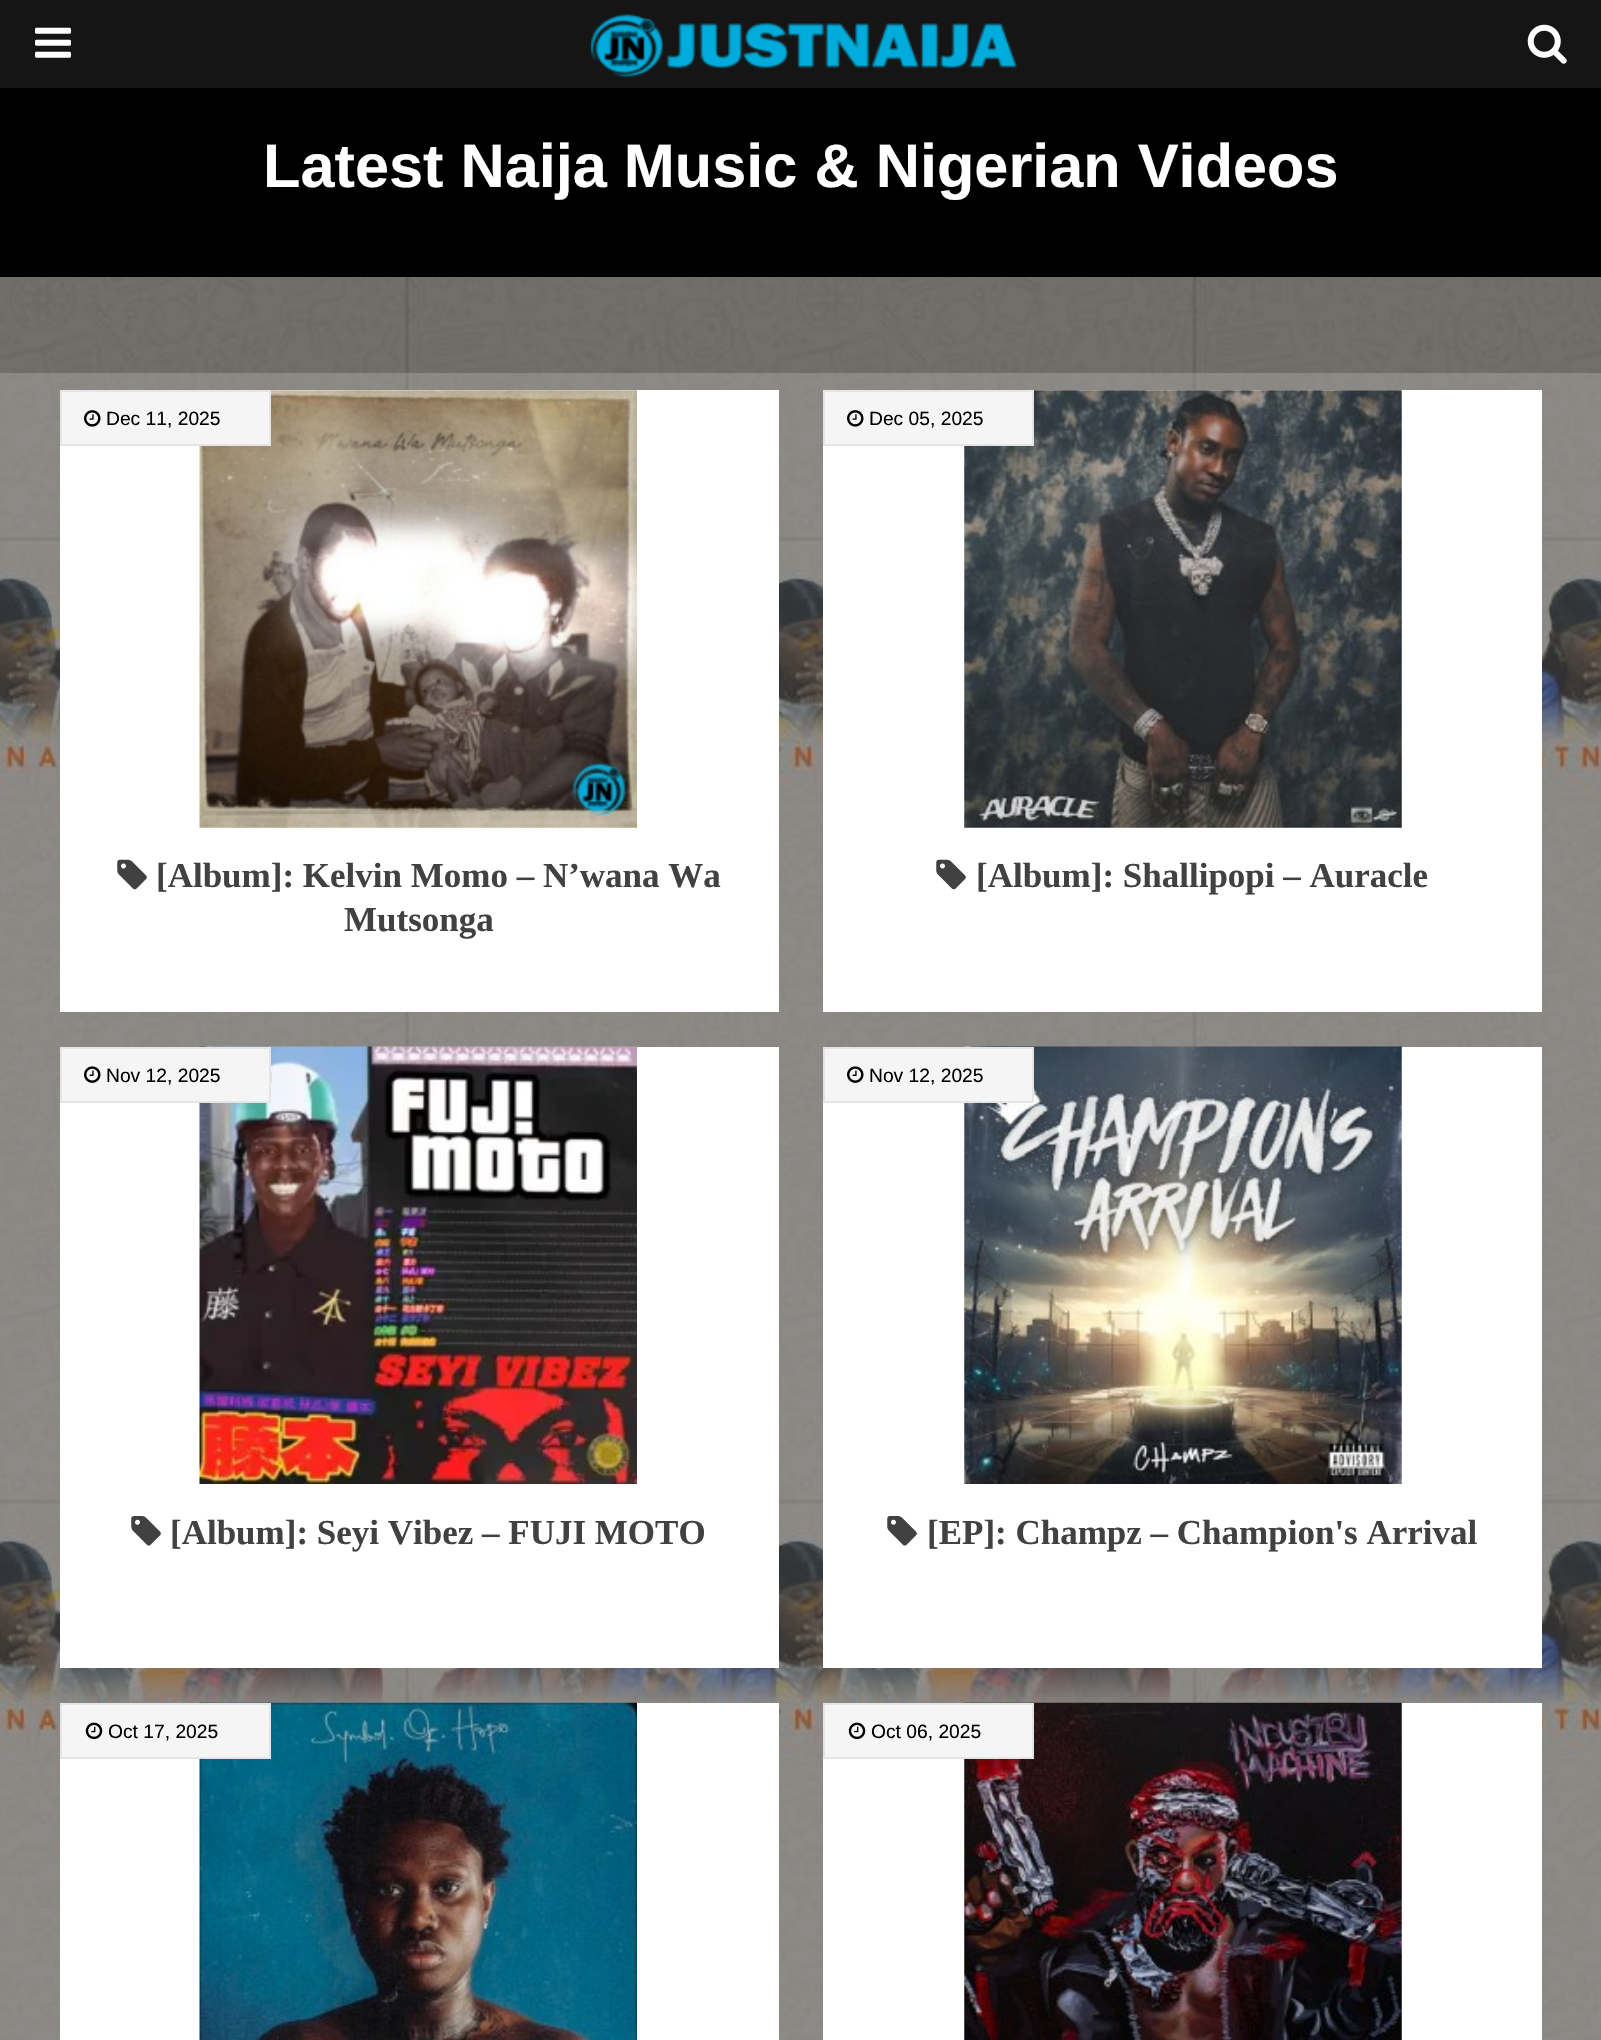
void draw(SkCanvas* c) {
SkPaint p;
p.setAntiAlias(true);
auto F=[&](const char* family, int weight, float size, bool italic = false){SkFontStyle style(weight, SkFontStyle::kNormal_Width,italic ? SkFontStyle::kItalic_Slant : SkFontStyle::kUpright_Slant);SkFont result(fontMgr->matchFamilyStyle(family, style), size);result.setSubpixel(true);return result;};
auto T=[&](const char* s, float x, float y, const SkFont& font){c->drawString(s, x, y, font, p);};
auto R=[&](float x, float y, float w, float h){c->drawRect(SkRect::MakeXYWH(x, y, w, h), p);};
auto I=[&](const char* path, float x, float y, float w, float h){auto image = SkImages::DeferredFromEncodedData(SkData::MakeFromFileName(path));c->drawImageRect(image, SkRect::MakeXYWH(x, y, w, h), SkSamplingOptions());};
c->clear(0xffffffff);
I("1.png",0,277,1601,1763);
p.setColor(0xff151515);
R(0,0,1601,88);
I("2.png",35,27,36,31);
I("3.png",589,14,429,64);
I("4.png",1527,24,40,40);
p.setColor(0xff000000);
R(0,88,1601,189);
auto f1 = F("Liberation Sans",700,61.25);
p.setColor(0xffffffff);
T("Latest Naija Music & Nigerian Videos",263,187,f1);
p.setColor(0x33f5f5f5);
R(0,373,1601,1667);
p.setColor(0xffffffff);
R(60,390,719,622);
I("6.png",199,390,438,438);
p.setColor(0xfff5f5f5);
c->drawRect(SkRect::MakeXYWH(61,391,209,54),p);
p.setStroke(true);
p.setStrokeWidth(2);
p.setColor(0xffe5e5e5);
c->drawRect(SkRect::MakeXYWH(61,391,209,54),p);
I("5.png",84,410,17,17);
auto f2 = F("Liberation Sans",400,19.25);
p.setStroke(false);
p.setColor(0xff000000);
T("Dec 11, 2025",106,425,f2);
I("7.png",117,859,30,31);
auto f3 = F("Liberation Serif",700,35);
p.setColor(0xff414141);
T("[Album]: Kelvin Momo – N’wana Wa",156,887,f3);
T("Mutsonga",344,931,f3);
p.setColor(0xffffffff);
R(823,390,719,622);
I("8.png",964,390,438,438);
p.setColor(0xfff5f5f5);
c->drawRect(SkRect::MakeXYWH(824,391,209,54),p);
p.setStroke(true);
p.setColor(0xffe5e5e5);
c->drawRect(SkRect::MakeXYWH(824,391,209,54),p);
I("5.png",847,410,17,17);
p.setStroke(false);
p.setColor(0xff000000);
T("Dec 05, 2025",869,425,f2);
I("7.png",936,859,30,31);
p.setColor(0xff414141);
T("[Album]: Shallipopi – Auracle",976,887,f3);
p.setColor(0xffffffff);
R(60,1047,719,621);
I("10.png",199,1046,438,438);
p.setColor(0xfff5f5f5);
c->drawRect(SkRect::MakeXYWH(61,1048,209,54),p);
p.setStroke(true);
p.setColor(0xffe5e5e5);
c->drawRect(SkRect::MakeXYWH(61,1048,209,54),p);
I("9.png",84,1066,17,17);
p.setStroke(false);
p.setColor(0xff000000);
T("Nov 12, 2025",106,1082,f2);
I("11.png",131,1516,30,30);
p.setColor(0xff414141);
T("[Album]: Seyi Vibez – FUJI MOTO",170,1544,f3);
p.setColor(0xffffffff);
R(823,1047,719,621);
I("12.png",964,1046,438,438);
p.setColor(0xfff5f5f5);
c->drawRect(SkRect::MakeXYWH(824,1048,209,54),p);
p.setStroke(true);
p.setColor(0xffe5e5e5);
c->drawRect(SkRect::MakeXYWH(824,1048,209,54),p);
I("9.png",847,1066,17,17);
p.setStroke(false);
p.setColor(0xff000000);
T("Nov 12, 2025",869,1082,f2);
I("11.png",887,1516,30,30);
p.setColor(0xff414141);
T("[EP]: Champz – Champion's Arrival",927,1544,f3);
p.setColor(0xffffffff);
R(60,1703,719,337);
I("14.png",199,1702,438,338);
p.setColor(0xfff5f5f5);
c->drawRect(SkRect::MakeXYWH(61,1704,209,54),p);
p.setStroke(true);
p.setColor(0xffe5e5e5);
c->drawRect(SkRect::MakeXYWH(61,1704,209,54),p);
I("13.png",85,1722,18,18);
p.setStroke(false);
p.setColor(0xff000000);
T("Oct 17, 2025",108,1738,f2);
p.setColor(0xffffffff);
R(823,1703,719,337);
I("15.png",964,1702,438,338);
p.setColor(0xfff5f5f5);
c->drawRect(SkRect::MakeXYWH(824,1704,209,54),p);
p.setStroke(true);
p.setColor(0xffe5e5e5);
c->drawRect(SkRect::MakeXYWH(824,1704,209,54),p);
I("13.png",848,1722,18,18);
p.setStroke(false);
p.setColor(0xff000000);
T("Oct 06, 2025",871,1738,f2);
}
